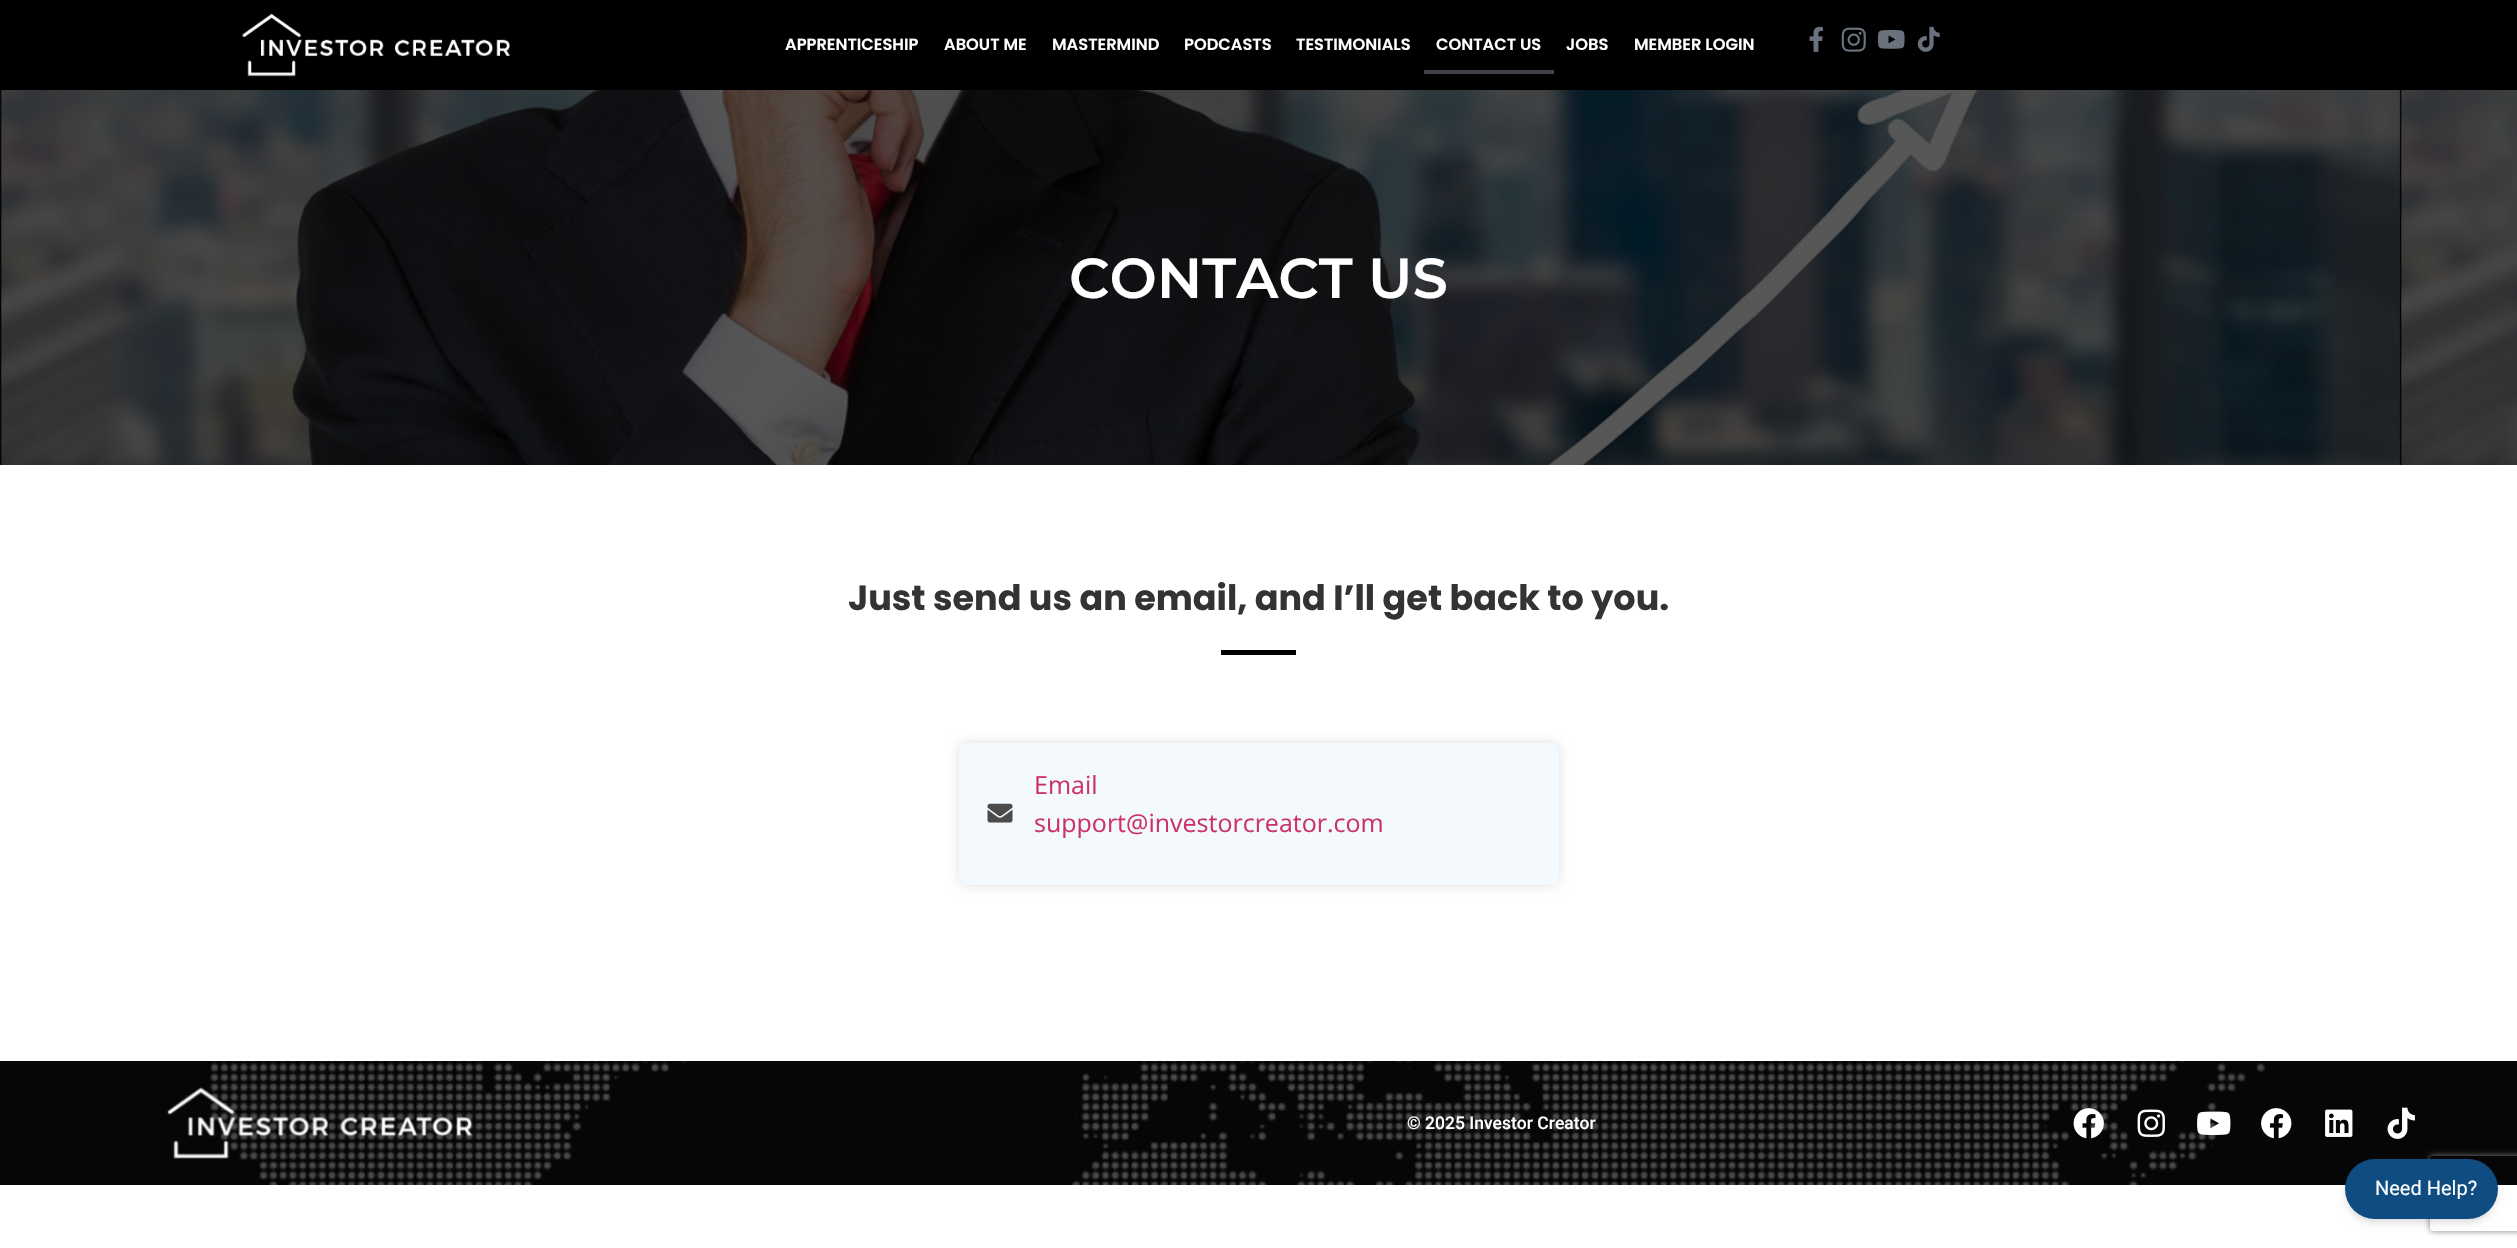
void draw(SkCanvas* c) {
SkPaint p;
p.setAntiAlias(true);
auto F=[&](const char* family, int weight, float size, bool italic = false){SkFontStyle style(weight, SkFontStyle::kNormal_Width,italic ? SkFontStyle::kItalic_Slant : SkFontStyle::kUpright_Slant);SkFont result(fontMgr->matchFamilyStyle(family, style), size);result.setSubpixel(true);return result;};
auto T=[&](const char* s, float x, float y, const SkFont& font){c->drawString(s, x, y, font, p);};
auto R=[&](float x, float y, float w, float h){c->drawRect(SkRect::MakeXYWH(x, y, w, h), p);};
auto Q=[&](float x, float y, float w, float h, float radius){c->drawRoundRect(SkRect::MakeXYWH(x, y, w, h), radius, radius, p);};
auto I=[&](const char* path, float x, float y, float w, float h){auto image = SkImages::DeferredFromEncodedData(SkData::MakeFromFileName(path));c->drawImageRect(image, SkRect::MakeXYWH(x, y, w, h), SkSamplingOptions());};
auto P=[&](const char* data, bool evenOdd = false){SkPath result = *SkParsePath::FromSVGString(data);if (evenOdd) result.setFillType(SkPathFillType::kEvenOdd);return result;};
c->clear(0xffffffff);
p.setColor(0xff000000);
R(0,0,2517,90);
I("1.png",242,13,268,64);
auto f1 = F("Poppins",600,16.25);
p.setColor(0xffffffff);
T("APPRENTICESHIP",785,50,f1);
T("ABOUT ME",944,50,f1);
T("MASTERMIND",1052,50,f1);
T("PODCASTS",1184,50,f1);
T("TESTIMONIALS",1296,50,f1);
T("CONTACT US",1436,50,f1);
p.setColor(0xff3f444b);
R(1424,70,130,4);
p.setColor(0xffffffff);
T("JOBS",1566,50,f1);
T("MEMBER LOGIN",1634,50,f1);
I("2.png",1809,26,14,26);
I("3.png",1841,27,25,25);
I("4.png",1877,30,28,19);
I("5.png",1917,26,23,26);
I("6.png",0,90,2517,375);
auto f2 = F("Montserrat",600,56.25);
T("CONTACT US",1069,298,f2);
auto f3 = F("Poppins",700,35);
p.setColor(0xff333333);
T("Just send us an email, and I’ll get back to you.",848,610,f3);
p.setColor(0xff000000);
R(1221,650,75,5);
p.setColor(0x1f000000);
p.setMaskFilter(SkMaskFilter::MakeBlur(kNormal_SkBlurStyle, 6));
c->drawRoundRect(SkRect::MakeXYWH(959,743,600,142),8,8,p);
p.setMaskFilter(nullptr);
p.setColor(0xfff4f9fd);
Q(959,743,600,142,8);
I("7.png",987,803,26,20);
auto f4 = F("Open Sans",400,25);
p.setColor(0xffcc3366);
T("Email",1034,794,f4);
T("support@investorcreator.com",1034,832,f4);
p.setColor(0xff060606);
R(0,1061,2517,124);
I("8.png",210,1061,2055,124);
I("9.png",167,1087,306,72);
auto f5 = F("Roboto",500,17.5);
p.setColor(0xffffffff);
T("© 2025 Investor Creator",1407,1129,f5);
I("10.png",2073,1108,31,31);
I("11.png",2137,1109,28,28);
I("12.png",2197,1111,34,24);
I("13.png",2261,1108,31,31);
I("14.png",2325,1109,28,28);
I("15.png",2387,1107,28,32);
c->save();
c->clipPath(P("M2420 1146h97v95h-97zm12.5 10h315c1.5 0 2.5 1 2.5 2.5v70c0 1.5-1 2.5-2.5 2.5h-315c-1.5 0-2.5-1-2.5-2.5v-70c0-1.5 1-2.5 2.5-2.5z",true),true);
p.setColor(0xff808080);
p.setMaskFilter(SkMaskFilter::MakeBlur(kNormal_SkBlurStyle, 3));
c->drawRoundRect(SkRect::MakeXYWH(2430,1156,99,75),2.5,2.5,p);
p.setMaskFilter(nullptr);
c->restore();
p.setColor(0x0f000000);
p.setMaskFilter(SkMaskFilter::MakeBlur(kNormal_SkBlurStyle, 2.5));
c->drawRoundRect(SkRect::MakeXYWH(2346,1163,150,57),28.5,28.5,p);
p.setMaskFilter(nullptr);
p.setColor(0x1a000000);
p.setMaskFilter(SkMaskFilter::MakeBlur(kNormal_SkBlurStyle, 4));
c->drawRoundRect(SkRect::MakeXYWH(2346,1165,150,58),29,29,p);
p.setMaskFilter(nullptr);
p.setColor(0xff0f4c81);
Q(2345,1159,153,60,30);
auto f6 = F("Roboto",400,20);
p.setColor(0xffffffff);
T("Need Help?",2375,1195,f6);
}
